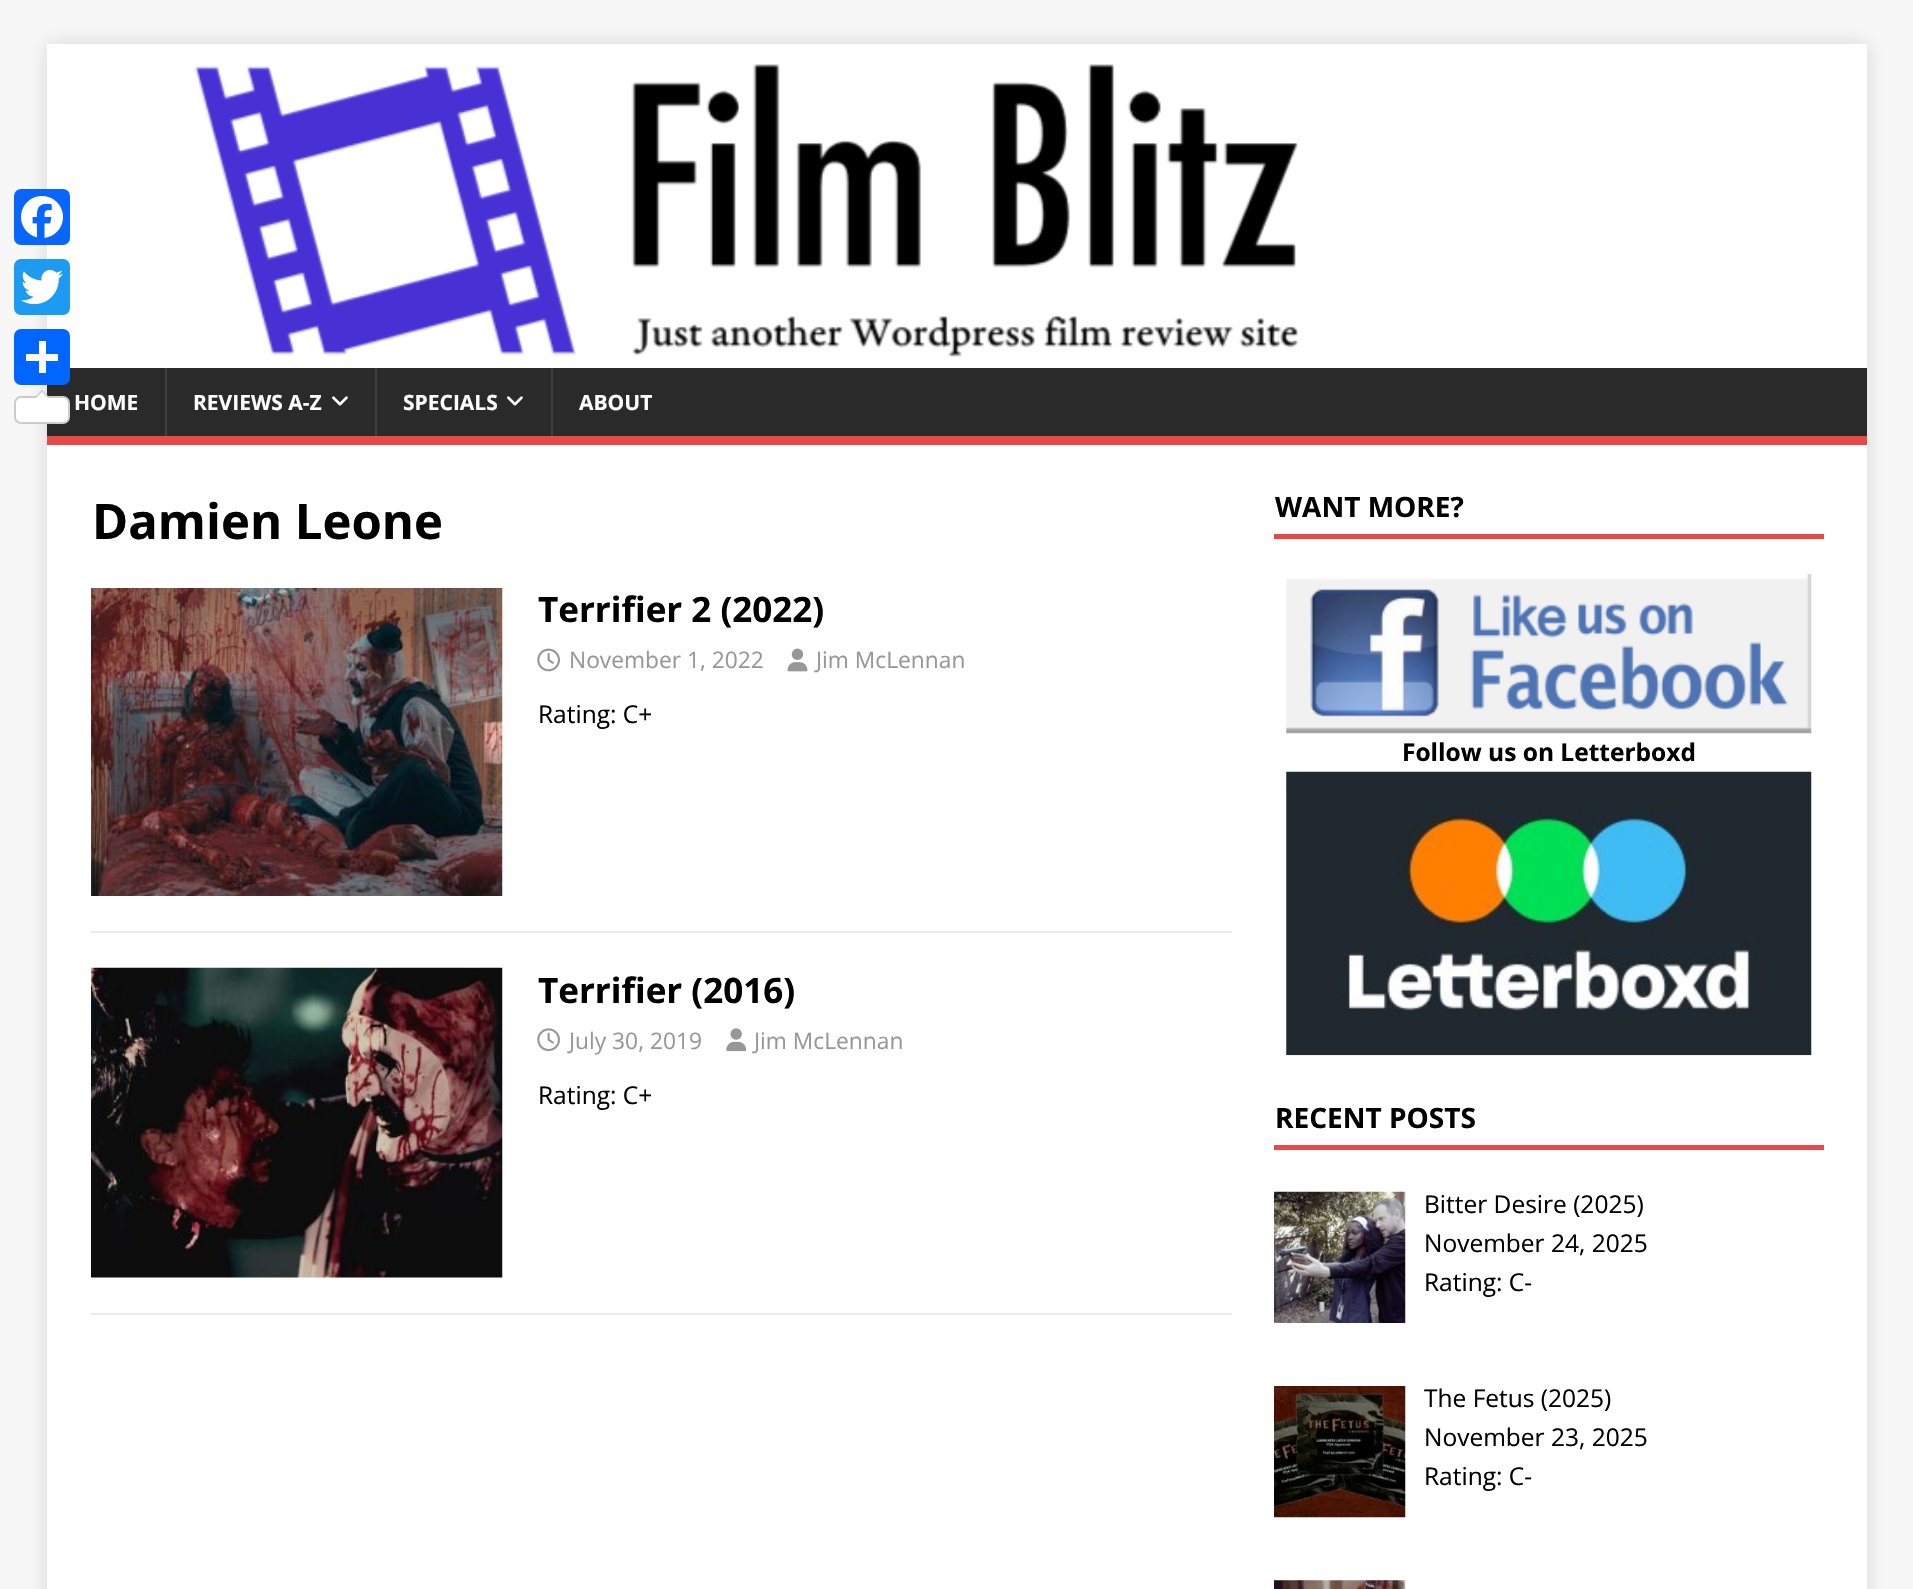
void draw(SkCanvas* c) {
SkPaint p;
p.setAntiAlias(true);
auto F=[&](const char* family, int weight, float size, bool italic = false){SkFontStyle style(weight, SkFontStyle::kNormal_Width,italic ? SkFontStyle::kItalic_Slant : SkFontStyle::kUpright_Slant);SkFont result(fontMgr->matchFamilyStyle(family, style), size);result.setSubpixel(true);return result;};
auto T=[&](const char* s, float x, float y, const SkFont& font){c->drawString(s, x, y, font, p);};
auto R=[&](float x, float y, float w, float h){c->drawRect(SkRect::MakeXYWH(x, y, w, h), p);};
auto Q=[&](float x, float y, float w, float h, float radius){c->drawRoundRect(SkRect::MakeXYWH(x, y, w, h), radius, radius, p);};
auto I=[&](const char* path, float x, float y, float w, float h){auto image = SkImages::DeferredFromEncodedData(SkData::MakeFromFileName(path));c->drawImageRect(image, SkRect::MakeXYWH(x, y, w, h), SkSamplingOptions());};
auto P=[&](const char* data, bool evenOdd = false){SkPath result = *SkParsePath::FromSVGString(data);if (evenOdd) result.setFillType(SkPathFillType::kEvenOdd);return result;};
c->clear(0xfff7f7f7);
p.setColor(0x2b323232);
p.setMaskFilter(SkMaskFilter::MakeBlur(kNormal_SkBlurStyle, 9));
c->drawRect(SkRect::MakeXYWH(47,44,1820,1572),p);
p.setMaskFilter(nullptr);
p.setColor(0xffffffff);
R(47,44,1820,324);
p.setColor(0xff0866ff);
Q(14,189,56,56,7);
I("1.png",21,196,42,42);
p.setColor(0xff1d9bf0);
Q(14,259,56,56,7);
I("2.png",21,269,42,36);
p.setColor(0xff2a2a2a);
R(47,368,1820,68);
p.setColor(0xff0166ff);
Q(14,329,56,56,7);
p.setColor(0xffffffff);
R(39,341,7,32);
R(26,354,32,7);
c->drawRoundRect(SkRect::MakeXYWH(15,397,54,26),6,6,p);
p.setStroke(true);
p.setStrokeWidth(2);
p.setColor(0xffcccccc);
c->drawRoundRect(SkRect::MakeXYWH(15,397,54,26),6,6,p);
p.setStroke(false);
c->drawPath(P("M49 397h-14l7-7z"),p);
p.setColor(0xffffffff);
c->drawPath(P("M49 399h-14l7-7z"),p);
I("3.png",194,64,1105,294);
p.setColor(0xffe64946);
R(47,436,1820,9);
auto f1 = F("Open Sans",700,21);
p.setColor(0xffffffff);
T("HOME",74,410,f1);
p.setColor(0xff3f3f3f);
R(165,368,2,68);
p.setColor(0xffffffff);
T("REVIEWS A-Z",193,410,f1);
I("4.png",332,396,16,10);
p.setColor(0xff3f3f3f);
R(375,368,2,68);
p.setColor(0xffffffff);
T("SPECIALS",403,410,f1);
I("4.png",507,396,16,10);
p.setColor(0xff3f3f3f);
R(551,368,2,68);
p.setColor(0xffffffff);
T("ABOUT",579,410,f1);
R(47,445,1820,1144);
auto f2 = F("Open Sans",700,49);
p.setColor(0xff000000);
T("Damien Leone",92,539,f2);
p.setColor(0xffebebeb);
R(91,931,1141,2);
I("5.png",91,588,412,308);
auto f3 = F("Open Sans",700,35);
p.setColor(0xff000000);
T("Terrifier 2 (2022)",538,622,f3);
I("6.png",537,648,23,24);
auto f4 = F("Open Sans",400,22.75);
p.setColor(0xff979797);
T("November 1, 2022",569,668,f4);
I("7.png",787,648,21,24);
T("Jim McLennan",816,668,f4);
auto f5 = F("Open Sans",400,24.5);
p.setColor(0xff000000);
T("Rating: C+",538,723,f5);
p.setColor(0xffebebeb);
R(91,1313,1141,2);
I("8.png",91,967,412,311);
p.setColor(0xff000000);
T("Terrifier (2016)",538,1003,f3);
I("9.png",537,1028,23,24);
p.setColor(0xff979797);
T("July 30, 2019",569,1049,f4);
I("10.png",726,1028,21,24);
T("Jim McLennan",754,1049,f4);
p.setColor(0xff000000);
T("Rating: C+",538,1104,f5);
p.setColor(0xffe64946);
R(1274,534,550,5);
auto f6 = F("Open Sans",700,28);
p.setColor(0xff000000);
T("WANT MORE?",1275,517,f6);
I("11.png",1286,574,526,160);
auto f7 = F("Open Sans",700,24.5);
T("Follow us on Letterboxd",1402,761,f7);
I("12.png",1286,771,526,285);
p.setColor(0xffe64946);
R(1274,1145,550,5);
p.setColor(0xff000000);
T("RECENT POSTS",1275,1128,f6);
I("13.png",1274,1191,132,132);
T("Bitter Desire (2025)",1424,1213,f5);
T("November 24, 2025",1424,1252,f5);
T("Rating: C-",1424,1291,f5);
I("14.png",1274,1386,132,132);
T("The Fetus (2025)",1424,1407,f5);
T("November 23, 2025",1424,1446,f5);
T("Rating: C-",1424,1485,f5);
I("15.png",1274,1580,132,9);
}
